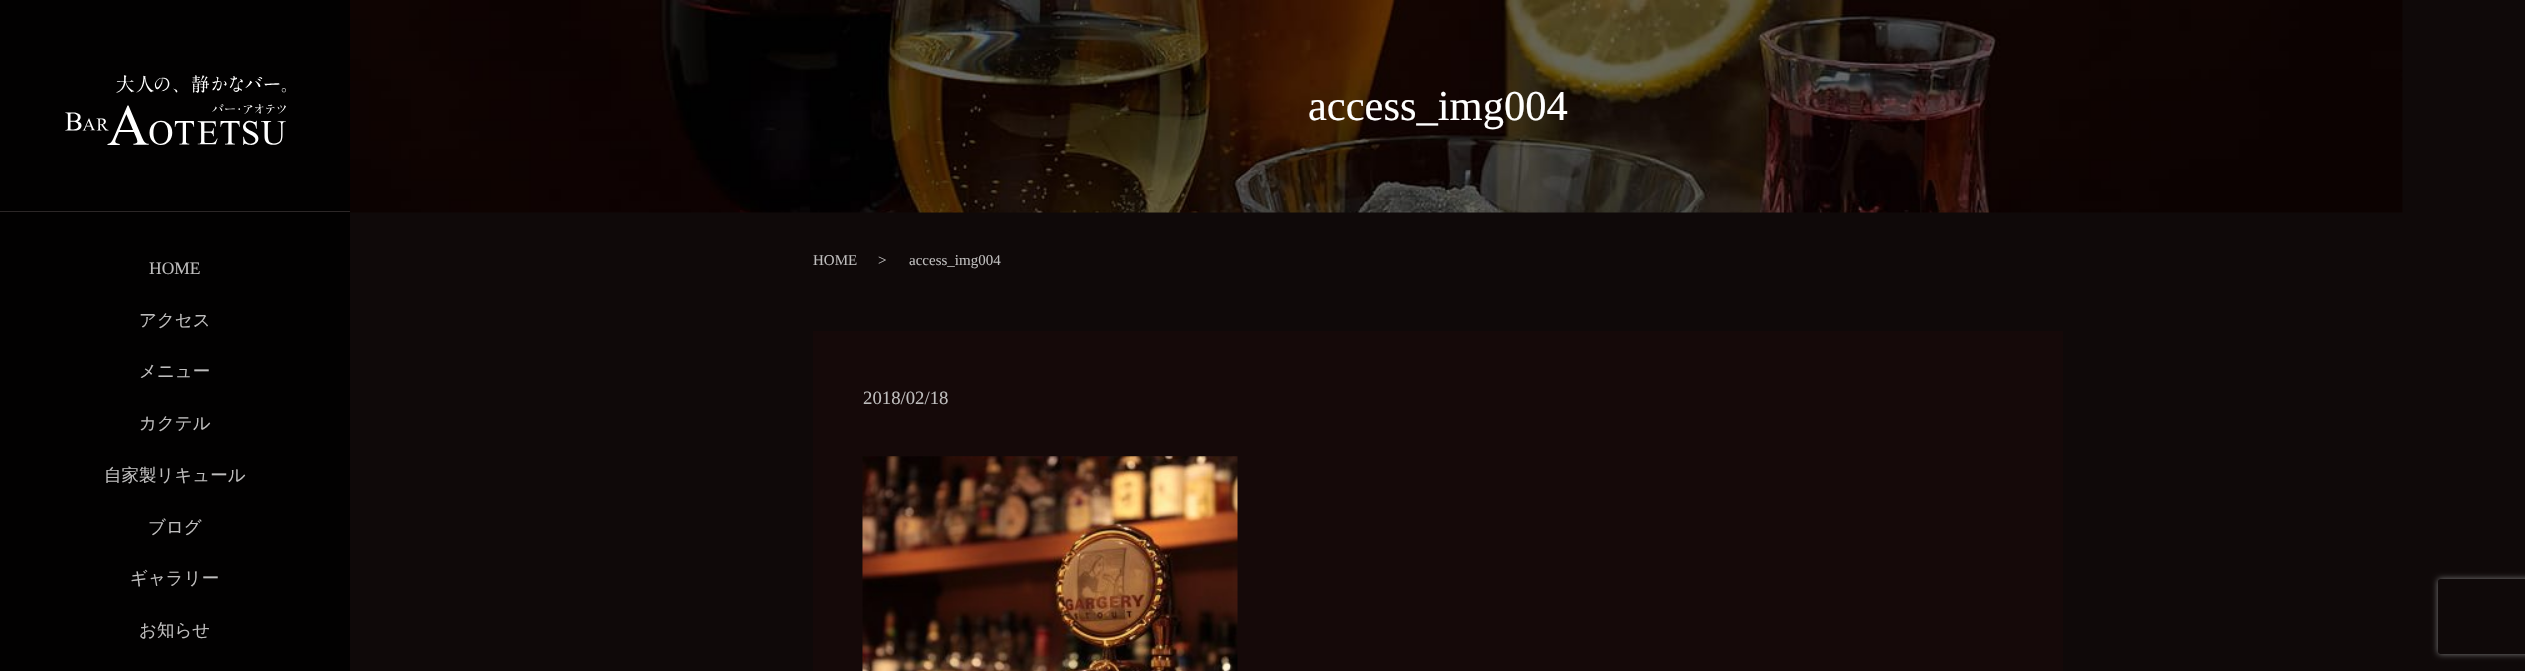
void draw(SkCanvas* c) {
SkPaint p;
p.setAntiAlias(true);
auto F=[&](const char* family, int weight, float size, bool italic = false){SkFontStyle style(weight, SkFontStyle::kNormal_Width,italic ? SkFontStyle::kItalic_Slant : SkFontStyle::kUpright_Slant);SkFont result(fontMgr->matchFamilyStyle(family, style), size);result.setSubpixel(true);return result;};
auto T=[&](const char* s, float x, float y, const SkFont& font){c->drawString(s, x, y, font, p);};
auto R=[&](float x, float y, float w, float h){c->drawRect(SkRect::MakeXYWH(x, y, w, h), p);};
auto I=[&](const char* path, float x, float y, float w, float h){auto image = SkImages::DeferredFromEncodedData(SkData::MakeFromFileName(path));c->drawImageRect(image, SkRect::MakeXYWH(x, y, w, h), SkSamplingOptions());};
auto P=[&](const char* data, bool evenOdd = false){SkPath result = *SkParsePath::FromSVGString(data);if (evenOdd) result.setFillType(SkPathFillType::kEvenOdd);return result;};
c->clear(0xff0f0909);
p.setColor(0xff020101);
R(0,0,350,671);
p.setColor(0xff2c2727);
R(0,211,350,1);
I("1.png",65,75,221,70);
auto f1 = F("Liberation Serif",400,17.5);
p.setColor(0xffbebdbd);
T("HOME",149,274,f1);
auto f2 = F("WenQuanYi Zen Hei",500,17.5);
T("アクセス",139,326,f2);
T("メニュー",139,377,f2);
T("カクテル",139,429,f2);
T("自家製リキュール",104,481,f2);
T("ブログ",148,533,f2);
T("ギャラリー",130,584,f2);
T("お知らせ",139,636,f2);
I("2.png",350,0,2053,213);
auto f3 = F("Liberation Serif",400,42.5);
p.setColor(0xffffffff);
T("access_img004",1308,120,f3);
auto f4 = F("Liberation Serif",400,15);
p.setColor(0xffbebdbd);
T("HOME",813,265,f4);
T(">",878,265,f4);
T("access_img004",909,265,f4);
p.setColor(0xff150909);
R(813,331,1250,340);
auto f5 = F("Liberation Serif",400,18.75);
p.setColor(0xffbebdbd);
T("2018/02/18",863,404,f5);
I("3.png",862,456,376,215);
c->save();
c->clipPath(P("M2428 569h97v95h-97zm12.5 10h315c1.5 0 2.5 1 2.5 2.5v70c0 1.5-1 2.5-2.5 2.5h-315c-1.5 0-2.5-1-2.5-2.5v-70c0-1.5 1-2.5 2.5-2.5z",true),true);
p.setColor(0xff808080);
p.setMaskFilter(SkMaskFilter::MakeBlur(kNormal_SkBlurStyle, 3));
c->drawRoundRect(SkRect::MakeXYWH(2438,579,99,75),2.5,2.5,p);
p.setMaskFilter(nullptr);
c->restore();
}
